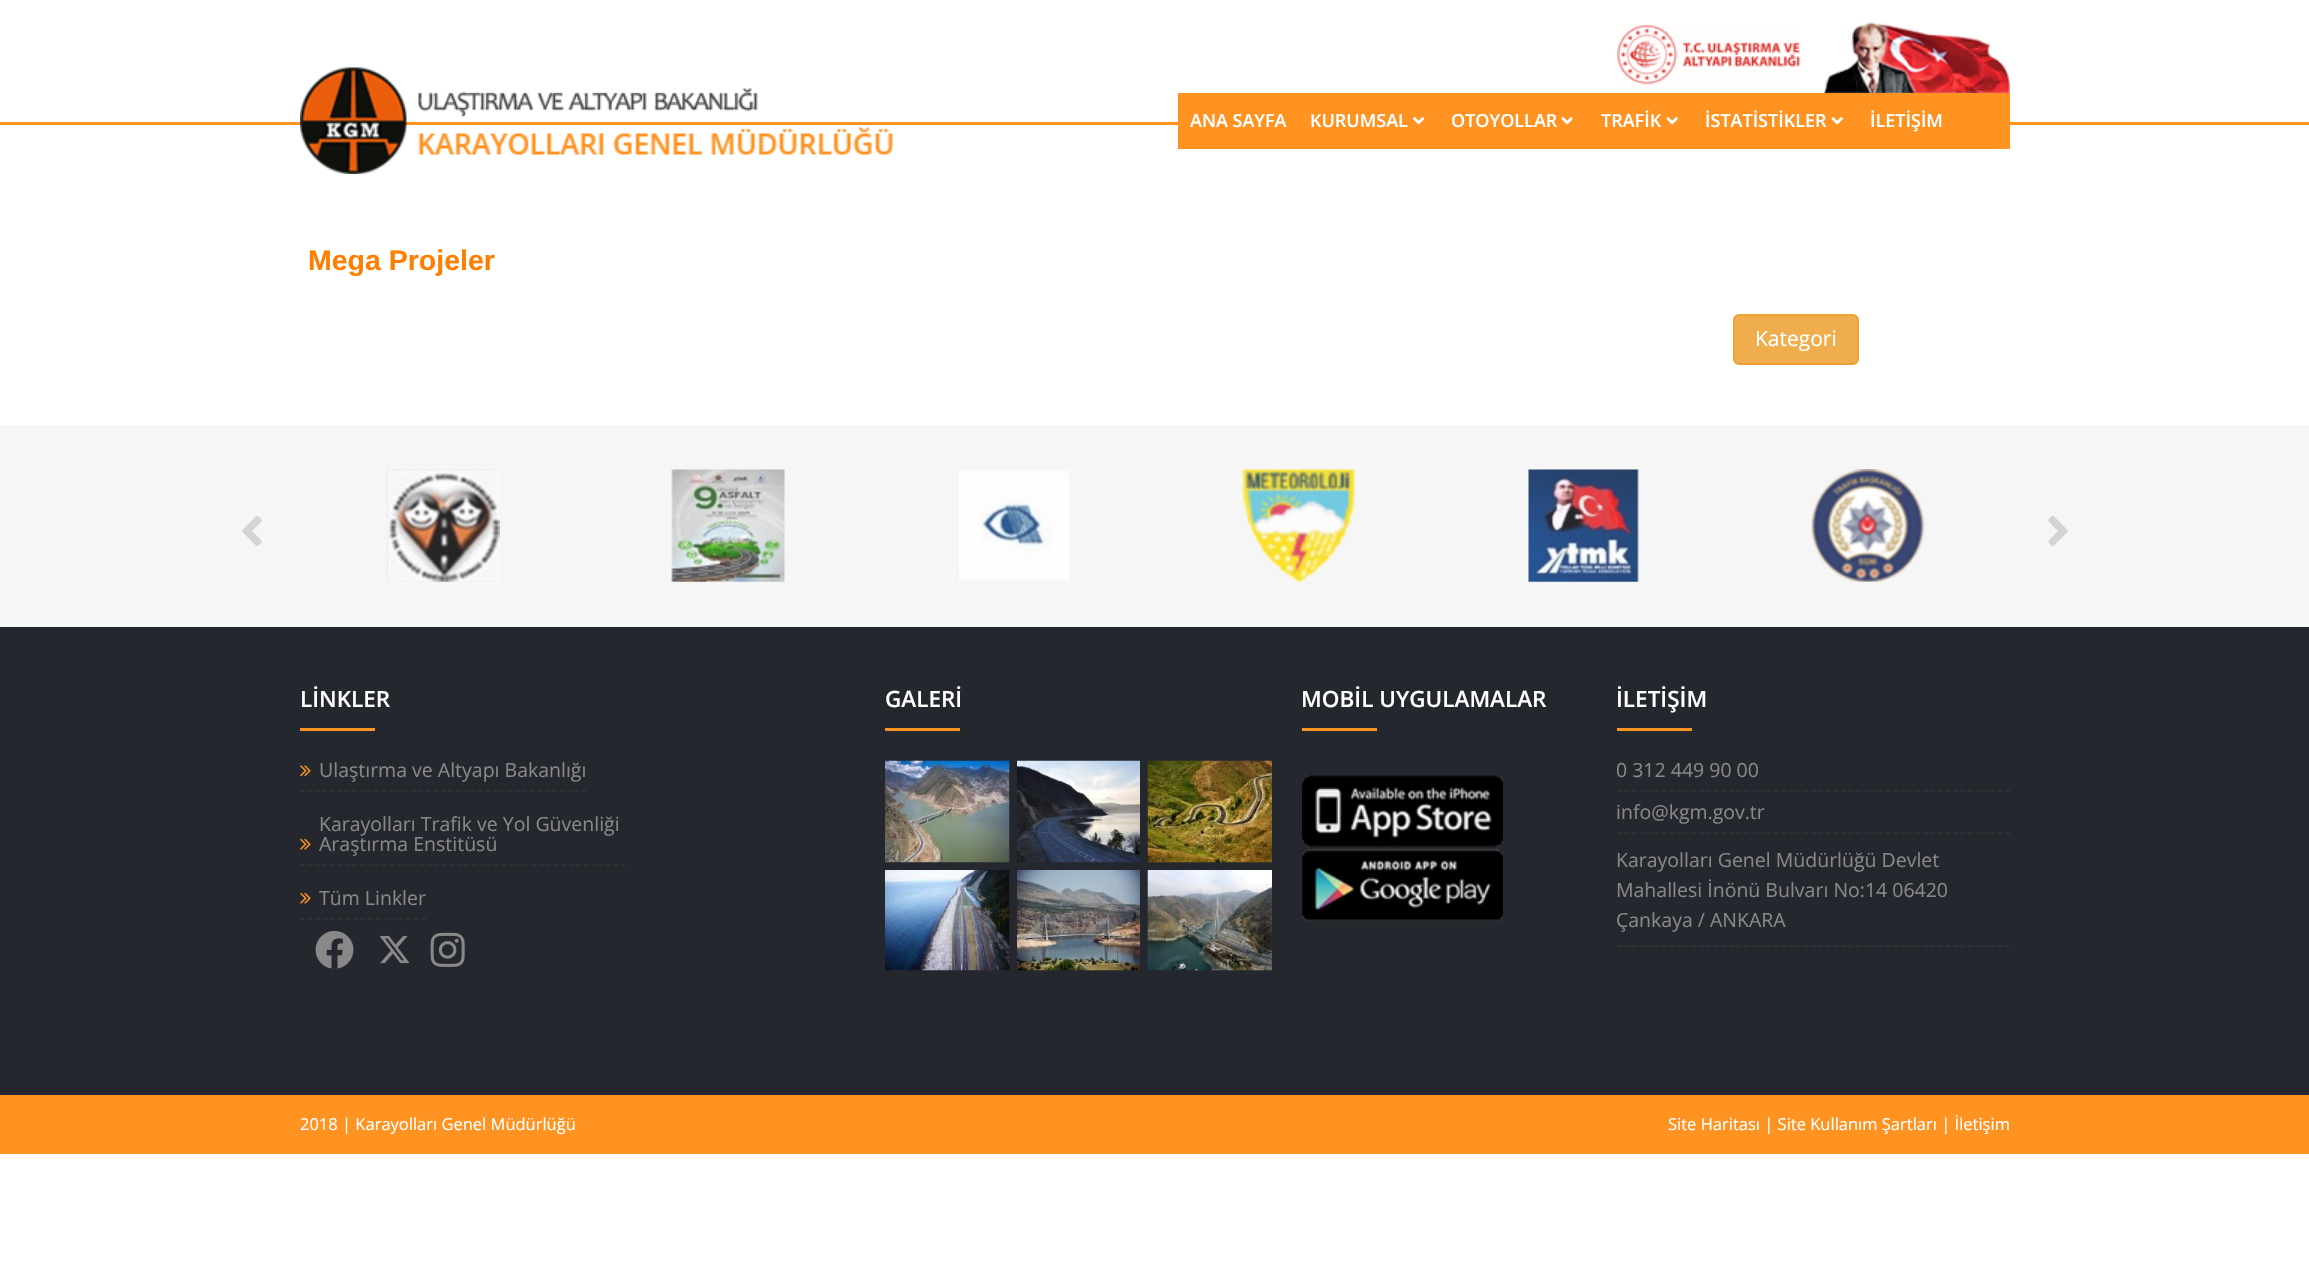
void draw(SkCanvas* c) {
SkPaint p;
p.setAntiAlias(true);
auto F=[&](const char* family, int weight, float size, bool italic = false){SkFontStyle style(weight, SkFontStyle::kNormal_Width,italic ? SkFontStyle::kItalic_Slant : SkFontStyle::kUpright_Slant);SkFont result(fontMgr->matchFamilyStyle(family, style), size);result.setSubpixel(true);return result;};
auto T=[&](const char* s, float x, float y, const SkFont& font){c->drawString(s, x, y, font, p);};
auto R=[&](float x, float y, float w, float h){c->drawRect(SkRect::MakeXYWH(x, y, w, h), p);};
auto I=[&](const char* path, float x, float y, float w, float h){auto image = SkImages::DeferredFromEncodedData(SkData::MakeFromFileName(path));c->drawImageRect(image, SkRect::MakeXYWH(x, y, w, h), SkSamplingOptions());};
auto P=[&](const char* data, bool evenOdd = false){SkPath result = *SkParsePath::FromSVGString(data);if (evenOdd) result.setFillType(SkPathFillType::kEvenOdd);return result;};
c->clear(0xffffffff);
p.setColor(0xfffe9322);
R(0,122,2309,3);
I("1.png",300,67,593,107);
I("2.png",1617,24,184,61);
I("3.png",1824,22,186,71);
R(1178,93,832,56);
auto f1 = F("Open Sans",600,18);
p.setColor(0xffffffff);
T("ANA SAYFA",1190,127,f1);
T("KURUMSAL",1310,127,f1);
I("4.png",1413,117,12,8);
T("OTOYOLLAR",1451,127,f1);
I("5.png",1561,117,12,8);
T("TRAFİK",1601,127,f1);
I("5.png",1666,117,12,8);
T("İSTATİSTİKLER",1705,127,f1);
I("5.png",1831,117,12,8);
T("İLETİŞİM",1870,127,f1);
auto f2 = F("Liberation Sans",700,28.5);
p.setColor(0xffff7e00);
T("Mega Projeler",308,270,f2);
p.setColor(0xfff0ad4e);
c->drawRoundRect(SkRect::MakeXYWH(1734,315,124,49),5,5,p);
p.setStroke(true);
p.setStrokeWidth(2);
p.setColor(0xffeea236);
c->drawRoundRect(SkRect::MakeXYWH(1734,315,124,49),5,5,p);
auto f3 = F("Open Sans",400,21);
p.setStroke(false);
p.setColor(0xffffffff);
T("Kategori",1755,346,f3);
p.setColor(0xfff6f6f6);
R(0,425,2309,202);
I("6.png",386,469,114,113);
I("7.png",671,469,114,113);
I("8.png",957,470,112,111);
I("9.png",1241,469,114,113);
I("10.png",1528,469,111,113);
I("11.png",1811,469,114,113);
I("12.png",242,516,20,30);
I("13.png",2048,516,20,30);
p.setColor(0xff25272e);
R(0,627,2309,468);
auto f4 = F("Open Sans",600,22.5);
p.setColor(0xffffffff);
T("LİNKLER",300,707,f4);
p.setColor(0xfffe9322);
R(300,728,75,3);
p.setStroke(true);
p.setStrokeWidth(1.5);
p.setColor(0xff333333);
p.setPathEffect(SkDashPathEffect::Make({{4.5f,2.92f}}, 0));
c->drawPath(P("M300 791h286.5"),p);
p.setPathEffect(nullptr);
I("14.png",300,765,11,12);
auto f5 = F("Open Sans",400,19.5);
p.setStroke(false);
p.setColor(0xff888888);
T("Ulaştırma ve Altyapı Bakanlığı",319,777,f5);
p.setStroke(true);
p.setColor(0xff333333);
p.setPathEffect(SkDashPathEffect::Make({{4.5f,2.97f}}, 0));
c->drawPath(P("M300 865h325.5"),p);
p.setPathEffect(nullptr);
I("15.png",300,838,11,12);
p.setStroke(false);
p.setColor(0xff888888);
T("Karayolları Trafik ve Yol Güvenliği",319,831,f5);
T("Araştırma Enstitüsü",319,851,f5);
p.setStroke(true);
p.setColor(0xff333333);
p.setPathEffect(SkDashPathEffect::Make({{4.5f,3.09f}}, 0));
c->drawPath(P("M300 919h126"),p);
p.setPathEffect(nullptr);
I("15.png",300,892,11,12);
p.setStroke(false);
p.setColor(0xff888888);
T("Tüm Linkler",319,905,f5);
I("16.png",315,931,39,38);
I("17.png",380,935,30,29);
I("18.png",430,932,35,35);
p.setColor(0xffffffff);
T("GALERİ",885,707,f4);
p.setColor(0xfffe9322);
R(885,728,75,3);
I("19.png",885,760,125,103);
I("20.png",1017,760,123,103);
I("21.png",1147,760,125,103);
I("22.png",885,870,125,101);
I("23.png",1017,870,123,101);
I("24.png",1147,870,125,101);
p.setColor(0xffffffff);
T("MOBİL UYGULAMALAR",1301,707,f4);
p.setColor(0xfffe9322);
R(1302,728,75,3);
I("25.png",1302,775,201,73);
I("26.png",1302,849,201,72);
p.setColor(0xffffffff);
T("İLETİŞİM",1616,707,f4);
p.setColor(0xfffe9322);
R(1617,728,75,3);
p.setStroke(true);
p.setColor(0xff333333);
p.setPathEffect(SkDashPathEffect::Make({{4.5f,2.97f}}, 0));
c->drawPath(P("M1617 791h393"),p);
p.setPathEffect(nullptr);
p.setStroke(false);
p.setColor(0xff888888);
T("0 312 449 90 00",1616,777,f5);
p.setStroke(true);
p.setColor(0xff333333);
p.setPathEffect(SkDashPathEffect::Make({{4.5f,2.97f}}, 0));
c->drawPath(P("M1617 833h393"),p);
p.setPathEffect(nullptr);
p.setStroke(false);
p.setColor(0xff888888);
T("info@kgm.gov.tr",1616,819,f5);
p.setStroke(true);
p.setColor(0xff333333);
p.setPathEffect(SkDashPathEffect::Make({{4.5f,2.97f}}, 0));
c->drawPath(P("M1617 946h393"),p);
p.setPathEffect(nullptr);
p.setStroke(false);
p.setColor(0xff888888);
T("Karayolları Genel Müdürlüğü Devlet",1616,867,f5);
T("Mahallesi İnönü Bulvarı No:14 06420",1616,897,f5);
T("Çankaya / ANKARA",1616,927,f5);
p.setColor(0xfffe9322);
R(0,1095,2309,59);
auto f6 = F("Open Sans",400,16.5);
p.setColor(0xffffffff);
T("2018 | Karayolları Genel Müdürlüğü",300,1130,f6);
T("Site Haritası | Site Kullanım Şartları | İletişim",1668,1130,f6);
}
